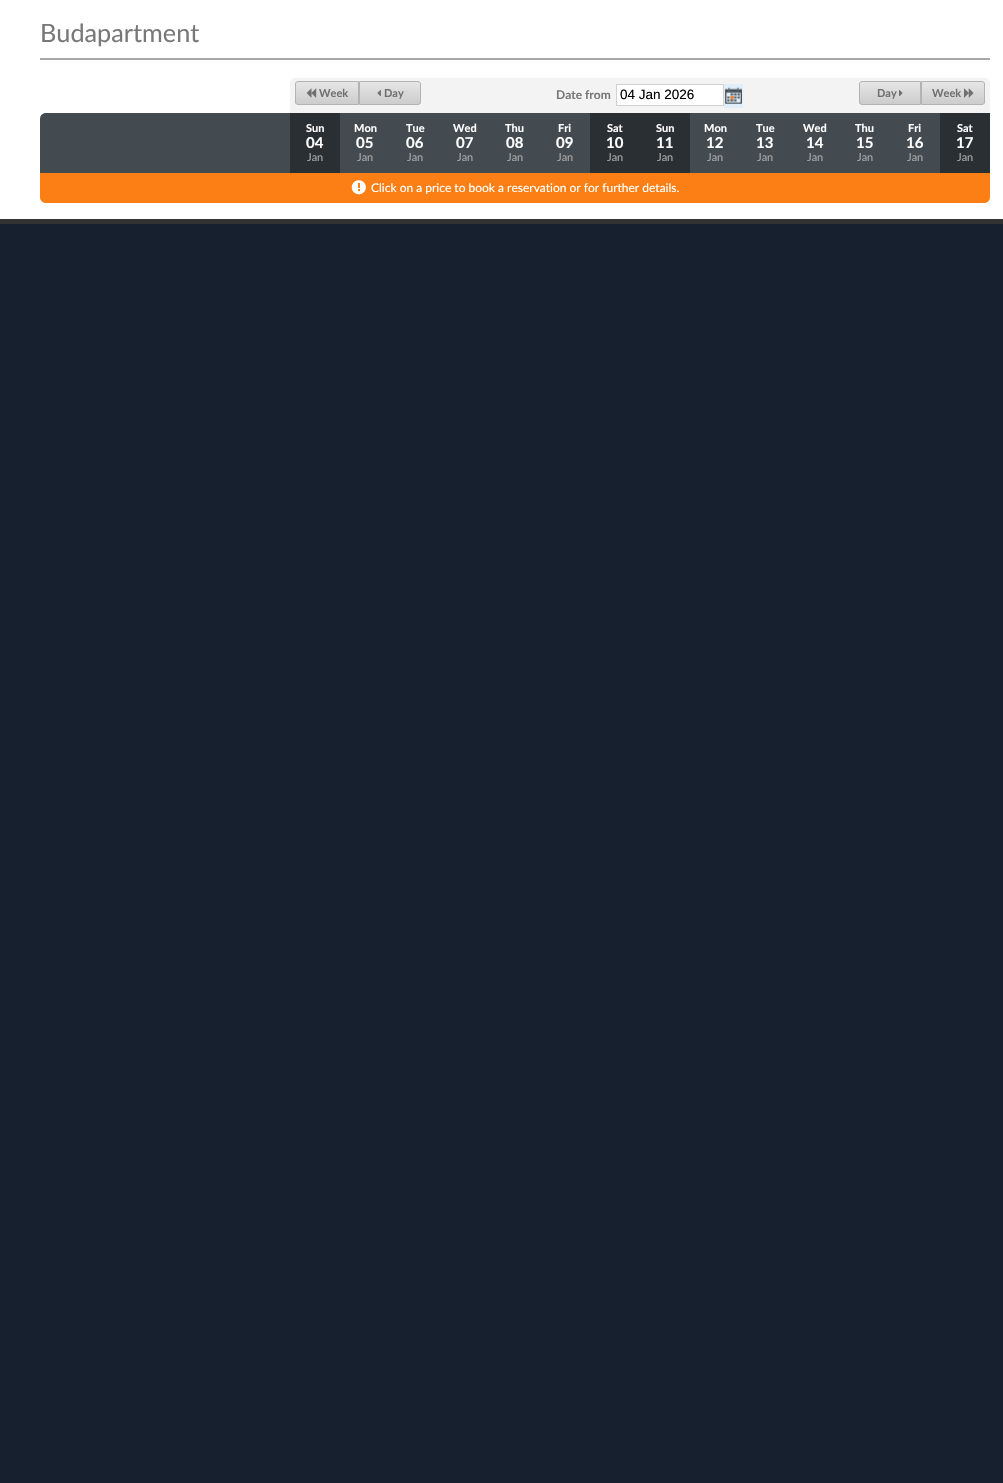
void draw(SkCanvas* c) {
SkPaint p;
p.setAntiAlias(true);
auto F=[&](const char* family, int weight, float size, bool italic = false){SkFontStyle style(weight, SkFontStyle::kNormal_Width,italic ? SkFontStyle::kItalic_Slant : SkFontStyle::kUpright_Slant);SkFont result(fontMgr->matchFamilyStyle(family, style), size);result.setSubpixel(true);return result;};
auto T=[&](const char* s, float x, float y, const SkFont& font){c->drawString(s, x, y, font, p);};
auto R=[&](float x, float y, float w, float h){c->drawRect(SkRect::MakeXYWH(x, y, w, h), p);};
auto I=[&](const char* path, float x, float y, float w, float h){auto image = SkImages::DeferredFromEncodedData(SkData::MakeFromFileName(path));c->drawImageRect(image, SkRect::MakeXYWH(x, y, w, h), SkSamplingOptions());};
auto P=[&](const char* data, bool evenOdd = false){SkPath result = *SkParsePath::FromSVGString(data);if (evenOdd) result.setFillType(SkPathFillType::kEvenOdd);return result;};
c->clear(0xff16202e);
p.setColor(0xff333333);
R(0,219,1003,5);
p.setColor(0xffffffff);
R(0,0,1003,219);
p.setColor(0xffa8a8a8);
R(40,58,950,2);
auto f1 = F("Lato",400,25.25);
p.setColor(0xff787878);
T("Budapartment",40,42,f1);
p.setColor(0xfff3f3f3);
c->drawPath(P("M296 78h205v35h-211v-29c0-3.5 2.5-6 6-6z"),p);
c->save();
c->clipPath(P("M298 81h61v24h-61c-1.5 0-3-1.5-3-3v-18c0-1.5 1.5-3 3-3z"),true);
{
const SkColor colors[] = {0xffe6e6e6,0xffcccccc};
const float stops[] = {0,1};
const SkPoint ends[] = {{327,82}, {327,104}};
p.setShader(SkGradientShader::MakeLinear(ends, colors, stops, 2, SkTileMode::kClamp));
p.setAlpha(255);
}
R(295,82,63,22);
c->restore();
p.setStroke(true);
p.setStrokeWidth(1);
p.setShader(nullptr);
p.setColor(0xffb3b3b3);
c->drawPath(P("M298 81.5h60.5v23h-60.5c-1.5 0-2.5-1-2.5-2.5v-18c0-1.5 1-2.5 2.5-2.5z"),p);
I("1.png",306,88,11,10);
auto f2 = F("Lato",700,11);
p.setStroke(false);
p.setColor(0xff707070);
T("Week",319,97,f2);
c->save();
c->clipPath(P("M359 81h59c1.5 0 3 1.5 3 3v18c0 1.5-1.5 3-3 3h-59z"),true);
{
const SkColor colors[] = {0xffe6e6e6,0xffcccccc};
const float stops[] = {0,1};
const SkPoint ends[] = {{390,82}, {390,104}};
p.setShader(SkGradientShader::MakeLinear(ends, colors, stops, 2, SkTileMode::kClamp));
p.setAlpha(255);
}
R(360,82,61,22);
c->restore();
p.setStroke(true);
p.setShader(nullptr);
p.setColor(0xffb3b3b3);
c->drawPath(P("M359.5 81.5h58.5c1.5 0 2.5 1 2.5 2.5v18c0 1.5-1 2.5-2.5 2.5h-58.5z"),p);
I("2.png",377,90,4,7);
p.setStroke(false);
p.setColor(0xff707070);
T("Day",384,97,f2);
p.setColor(0xfff3f3f3);
R(501,78,292,35);
auto f3 = F("Lato",700,12);
p.setColor(0xff787878);
T("Date from",556,99,f3);
p.setColor(0xffffffff);
c->drawRect(SkRect::MakeXYWH(616.5,84.5,107,21),p);
p.setStroke(true);
p.setColor(0xffd1d1d1);
c->drawRect(SkRect::MakeXYWH(616.5,84.5,107,21),p);
auto f4 = F("Liberation Sans",400,13.5);
p.setStroke(false);
p.setColor(0xff000000);
T("04 Jan 2026",620,99,f4);
I("3.png",724,84,19,24);
p.setColor(0xfff3f3f3);
c->drawPath(P("M793 78h191c3.5 0 6 2.5 6 6v29h-197z"),p);
c->save();
c->clipPath(P("M862 81h59v24h-59c-1.5 0-3-1.5-3-3v-18c0-1.5 1.5-3 3-3z"),true);
{
const SkColor colors[] = {0xffe6e6e6,0xffcccccc};
const float stops[] = {0,1};
const SkPoint ends[] = {{890,82}, {890,104}};
p.setShader(SkGradientShader::MakeLinear(ends, colors, stops, 2, SkTileMode::kClamp));
p.setAlpha(255);
}
R(859,82,61,22);
c->restore();
p.setStroke(true);
p.setShader(nullptr);
p.setColor(0xffb3b3b3);
c->drawPath(P("M862 81.5h58.5v23h-58.5c-1.5 0-2.5-1-2.5-2.5v-18c0-1.5 1-2.5 2.5-2.5z"),p);
p.setStroke(false);
p.setColor(0xff707070);
T("Day",877,97,f2);
I("4.png",899,90,4,7);
c->save();
c->clipPath(P("M921 81h61c1.5 0 3 1.5 3 3v18c0 1.5-1.5 3-3 3h-61z"),true);
{
const SkColor colors[] = {0xffe6e6e6,0xffcccccc};
const float stops[] = {0,1};
const SkPoint ends[] = {{953,82}, {953,104}};
p.setShader(SkGradientShader::MakeLinear(ends, colors, stops, 2, SkTileMode::kClamp));
p.setAlpha(255);
}
R(922,82,63,22);
c->restore();
p.setStroke(true);
p.setShader(nullptr);
p.setColor(0xffb3b3b3);
c->drawPath(P("M921.5 81.5h60.5c1.5 0 2.5 1 2.5 2.5v18c0 1.5-1 2.5-2.5 2.5h-60.5z"),p);
p.setStroke(false);
p.setColor(0xff707070);
T("Week",932,97,f2);
I("5.png",964,88,10,10);
p.setColor(0xff434a50);
c->drawPath(P("M46 113h244v60h-250v-54c0-3.5 2.5-6 6-6z"),p);
p.setColor(0xff2a2f34);
R(290,113,50,60);
p.setColor(0xffffffff);
T("Sun",306,132,f2);
auto f5 = F("Lato",700,15);
T("04",306,148,f5);
auto f6 = F("Lato",400,11);
p.setColor(0xffa8a8a8);
T("Jan",307,161,f6);
p.setColor(0xff434a50);
R(340,113,250,60);
p.setColor(0xffffffff);
T("Mon",354,132,f2);
T("05",356,148,f5);
p.setColor(0xffa8a8a8);
T("Jan",357,161,f6);
p.setColor(0xffffffff);
T("Tue",406,132,f2);
T("06",406,148,f5);
p.setColor(0xffa8a8a8);
T("Jan",407,161,f6);
p.setColor(0xffffffff);
T("Wed",453,132,f2);
T("07",456,148,f5);
p.setColor(0xffa8a8a8);
T("Jan",457,161,f6);
p.setColor(0xffffffff);
T("Thu",505,132,f2);
T("08",506,148,f5);
p.setColor(0xffa8a8a8);
T("Jan",507,161,f6);
p.setColor(0xffffffff);
T("Fri",558,132,f2);
T("09",556,148,f5);
p.setColor(0xffa8a8a8);
T("Jan",557,161,f6);
p.setColor(0xff2a2f34);
R(590,113,100,60);
p.setColor(0xffffffff);
T("Sat",607,132,f2);
T("10",606,148,f5);
p.setColor(0xffa8a8a8);
T("Jan",607,161,f6);
p.setColor(0xffffffff);
T("Sun",656,132,f2);
T("11",656,148,f5);
p.setColor(0xffa8a8a8);
T("Jan",657,161,f6);
p.setColor(0xff434a50);
R(690,113,250,60);
p.setColor(0xffffffff);
T("Mon",704,132,f2);
T("12",706,148,f5);
p.setColor(0xffa8a8a8);
T("Jan",707,161,f6);
p.setColor(0xffffffff);
T("Tue",756,132,f2);
T("13",756,148,f5);
p.setColor(0xffa8a8a8);
T("Jan",757,161,f6);
p.setColor(0xffffffff);
T("Wed",803,132,f2);
T("14",806,148,f5);
p.setColor(0xffa8a8a8);
T("Jan",807,161,f6);
p.setColor(0xffffffff);
T("Thu",855,132,f2);
T("15",856,148,f5);
p.setColor(0xffa8a8a8);
T("Jan",857,161,f6);
p.setColor(0xffffffff);
T("Fri",908,132,f2);
T("16",906,148,f5);
p.setColor(0xffa8a8a8);
T("Jan",907,161,f6);
p.setColor(0xff2a2f34);
R(940,113,50,60);
p.setColor(0xffffffff);
T("Sat",957,132,f2);
T("17",956,148,f5);
p.setColor(0xffa8a8a8);
T("Jan",957,161,f6);
p.setColor(0xfffc7f15);
c->drawPath(P("M40 173h950v24c0 3.5-2.5 6-6 6h-938c-3.5 0-6-2.5-6-6z"),p);
I("6.png",351,180,15,15);
auto f7 = F("Lato",400,12);
p.setColor(0xffffffff);
T("Click on a price to book a reservation or for further details.",371,192,f7);
}
